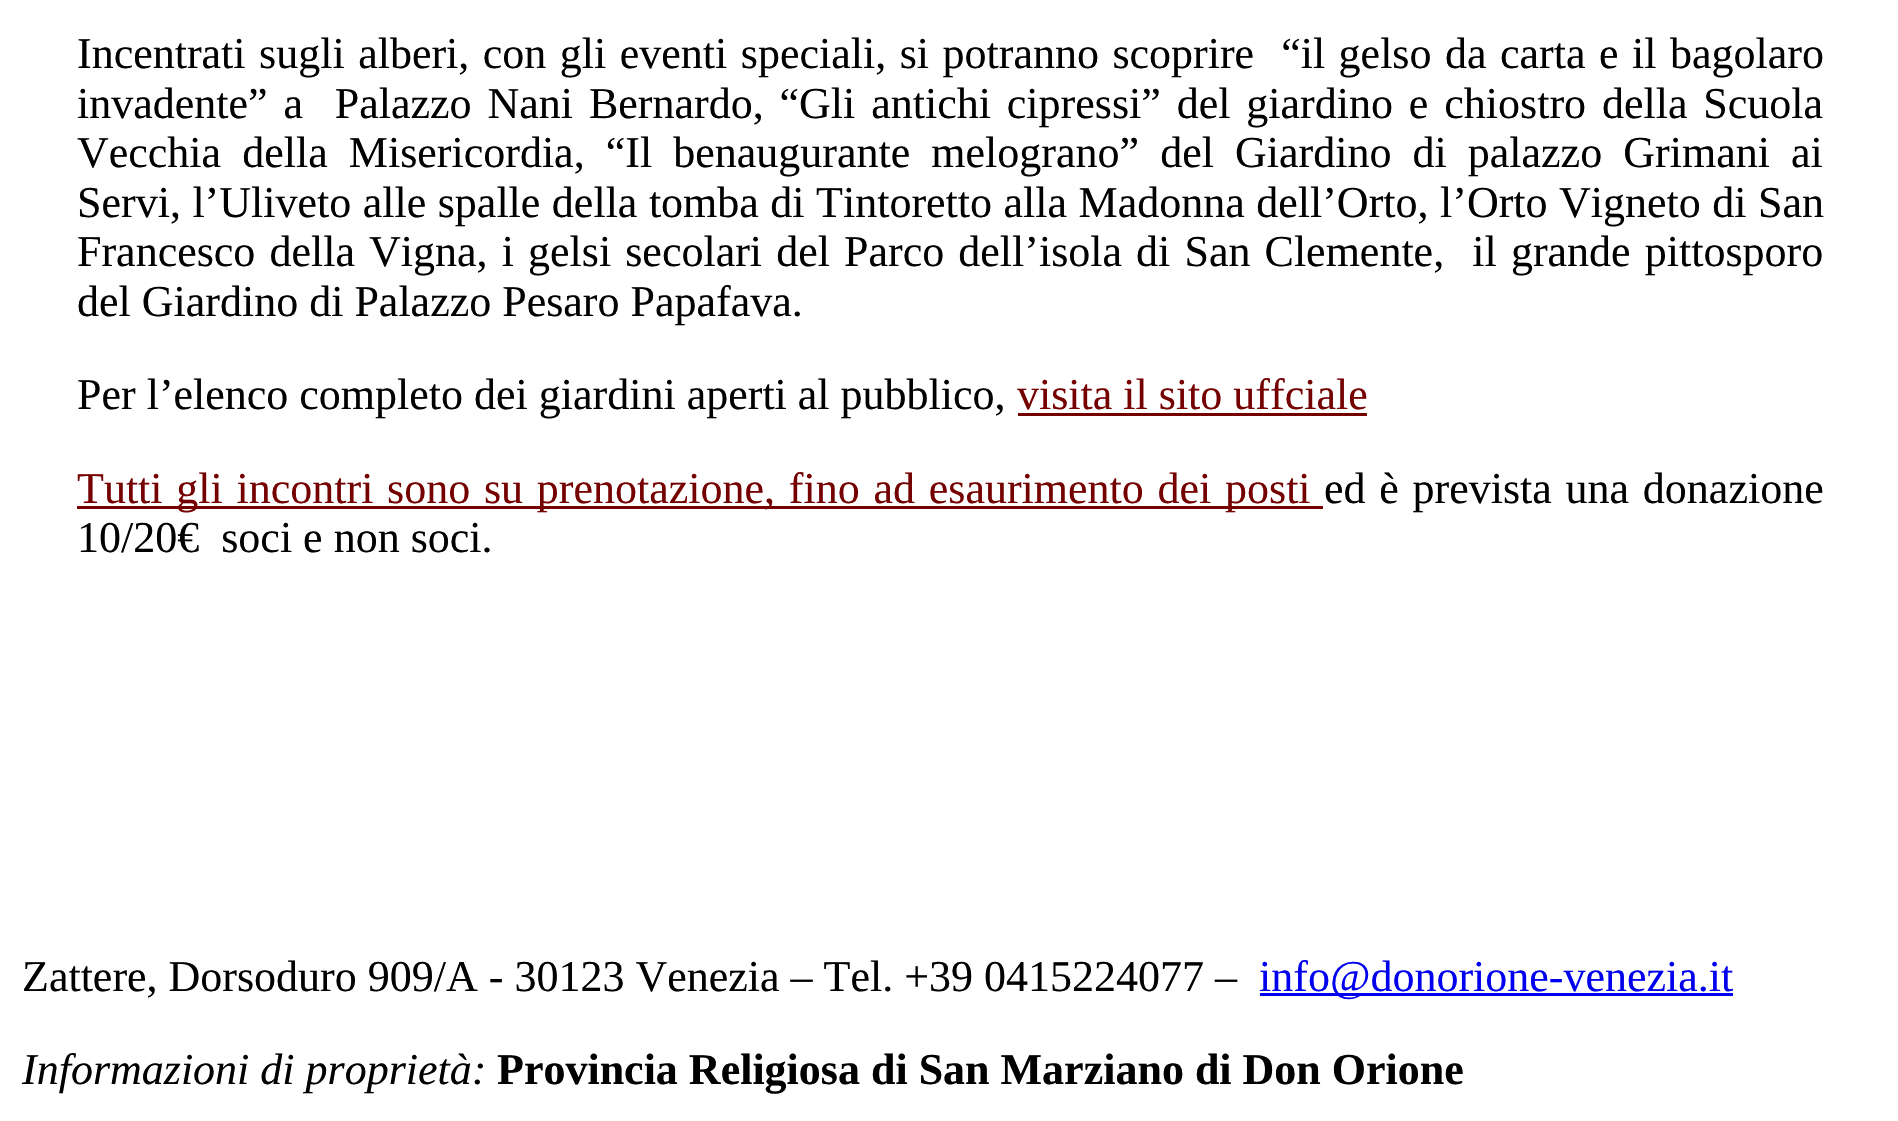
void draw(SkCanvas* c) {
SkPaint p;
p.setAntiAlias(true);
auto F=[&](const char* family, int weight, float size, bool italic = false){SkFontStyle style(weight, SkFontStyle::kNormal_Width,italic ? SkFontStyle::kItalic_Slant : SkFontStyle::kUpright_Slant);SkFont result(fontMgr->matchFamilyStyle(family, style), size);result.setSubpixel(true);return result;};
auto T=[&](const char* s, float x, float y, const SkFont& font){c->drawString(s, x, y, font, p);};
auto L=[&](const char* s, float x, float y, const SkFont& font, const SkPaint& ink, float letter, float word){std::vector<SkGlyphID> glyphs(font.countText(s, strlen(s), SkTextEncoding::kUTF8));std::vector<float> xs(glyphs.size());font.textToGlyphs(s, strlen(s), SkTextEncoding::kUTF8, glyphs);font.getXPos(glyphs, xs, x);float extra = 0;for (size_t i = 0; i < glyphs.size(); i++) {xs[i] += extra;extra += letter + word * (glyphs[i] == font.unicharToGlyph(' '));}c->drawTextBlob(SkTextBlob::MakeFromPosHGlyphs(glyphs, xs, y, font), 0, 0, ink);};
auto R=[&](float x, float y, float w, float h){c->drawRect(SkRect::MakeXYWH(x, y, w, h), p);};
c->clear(0xffffffff);
auto f1 = F("Liberation Serif",400,44);
p.setColor(0xff000000);
L("Incentrati sugli alberi, con gli eventi speciali, si potranno scoprire  “il gelso da carta e il bagolaro",77,68,f1,p,0,2.5);
L("invadente” a  Palazzo Nani Bernardo, “Gli antichi cipressi” del giardino e chiostro della Scuola",77,118,f1,p,0,4.9);
L("Vecchia della Misericordia, “Il benaugurante melograno” del Giardino di palazzo Grimani ai",77,167,f1,p,0,10.1);
L("Servi, l’Uliveto alle spalle della tomba di Tintoretto alla Madonna dell’Orto, l’Orto Vigneto di San",77,217,f1,p,0,.5);
L("Francesco della Vigna, i gelsi secolari del Parco dell’isola di San Clemente,  il grande pittosporo",77,266,f1,p,0,3.1);
T("del Giardino di Palazzo Pesaro Papafava.",77,316,f1);
T("Per l’elenco completo dei giardini aperti al pubblico,",77,409,f1);
p.setColor(0xff740000);
T("visita il sito uffciale",1017,409,f1);
R(1018,413,349,3);
R(77,506,1246,3);
L("Tutti gli incontri sono su prenotazione, fino ad esaurimento dei posti",77,503,f1,p,0,2.75);
p.setColor(0xff000000);
L("ed è prevista una donazione",1324,503,f1,p,0,2.75);
T("10/20€  soci e non soci.",77,552,f1);
T("Zattere, Dorsoduro 909/A - 30123 Venezia – Tel. +39 0415224077 –",22,991,f1);
p.setColor(0xff0000ee);
R(1260,993,473,3);
T("info@donorione-venezia.it",1259,991,f1);
auto f2 = F("Liberation Serif",400,44,true);
p.setColor(0xff000000);
T("Informazioni di proprietà:",22,1084,f2);
auto f3 = F("Liberation Serif",700,44);
T("Provincia Religiosa di San Marziano di Don Orione",497,1084,f3);
}
